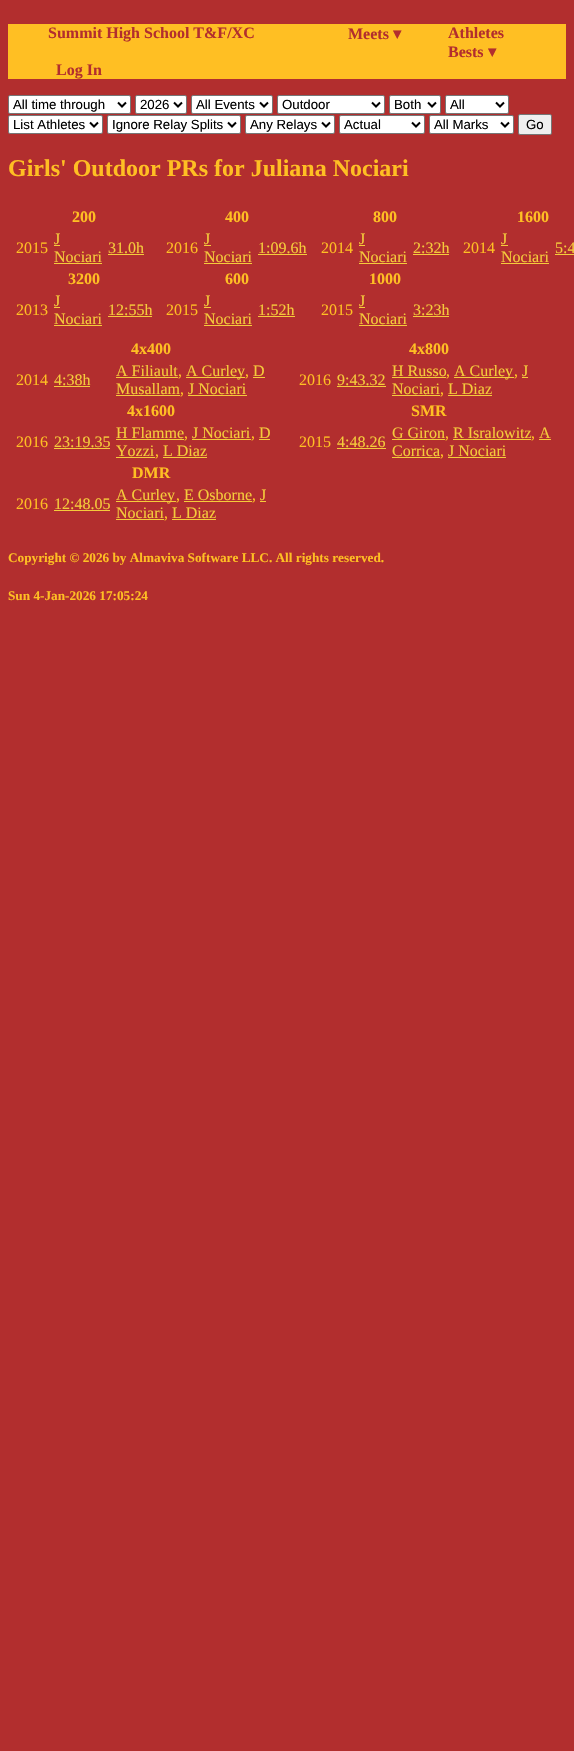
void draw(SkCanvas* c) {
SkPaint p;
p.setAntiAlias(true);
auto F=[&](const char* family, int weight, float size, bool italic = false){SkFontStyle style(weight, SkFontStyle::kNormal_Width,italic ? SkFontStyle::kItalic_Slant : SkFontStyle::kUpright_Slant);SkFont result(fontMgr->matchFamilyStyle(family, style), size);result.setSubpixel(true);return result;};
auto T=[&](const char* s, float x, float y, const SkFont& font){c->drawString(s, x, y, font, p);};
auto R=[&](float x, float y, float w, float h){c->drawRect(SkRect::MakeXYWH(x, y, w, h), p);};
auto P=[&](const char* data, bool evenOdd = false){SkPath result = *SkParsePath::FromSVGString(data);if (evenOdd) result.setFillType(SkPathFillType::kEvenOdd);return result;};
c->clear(0xffb22e2e);
p.setColor(0xffffbf23);
R(8,24,558,55);
auto f1 = F("Liberation Serif",700,16);
p.setColor(0xffb22e2e);
T("Summit High School T&F/XC",48,38,f1);
T("Meets",348,39,f1);
auto f2 = F("DejaVu Sans",700,16);
T("▾",393,39,f2);
T("Athletes",448,38,f1);
T("Bests",448,57,f1);
T("▾",488,57,f2);
T("Log In",56,75,f1);
p.setColor(0xffffffff);
c->drawRoundRect(SkRect::MakeXYWH(8.5,95.5,122,18),1.5,1.5,p);
p.setStroke(true);
p.setStrokeWidth(1);
p.setColor(0xff767676);
c->drawRoundRect(SkRect::MakeXYWH(8.5,95.5,122,18),1.5,1.5,p);
p.setStrokeWidth(2);
p.setColor(0xff000000);
c->drawPath(P("M118 102.5l4 4l4-4"),p);
auto f3 = F("Liberation Sans",400,13.25);
p.setStroke(false);
T("All time through",13,109,f3);
p.setColor(0xffffffff);
c->drawRoundRect(SkRect::MakeXYWH(135.5,95.5,51,18),1.5,1.5,p);
p.setStroke(true);
p.setStrokeWidth(1);
p.setColor(0xff767676);
c->drawRoundRect(SkRect::MakeXYWH(135.5,95.5,51,18),1.5,1.5,p);
p.setStrokeWidth(2);
p.setColor(0xff000000);
c->drawPath(P("M174 102.5l4 4l4-4"),p);
p.setStroke(false);
T("2026",140,109,f3);
p.setColor(0xffffffff);
c->drawRoundRect(SkRect::MakeXYWH(191.5,95.5,81,18),1.5,1.5,p);
p.setStroke(true);
p.setStrokeWidth(1);
p.setColor(0xff767676);
c->drawRoundRect(SkRect::MakeXYWH(191.5,95.5,81,18),1.5,1.5,p);
p.setStrokeWidth(2);
p.setColor(0xff000000);
c->drawPath(P("M260 102.5l4 4l4-4"),p);
p.setStroke(false);
T("All Events",196,109,f3);
p.setColor(0xffffffff);
c->drawRoundRect(SkRect::MakeXYWH(277.5,95.5,107,18),1.5,1.5,p);
p.setStroke(true);
p.setStrokeWidth(1);
p.setColor(0xff767676);
c->drawRoundRect(SkRect::MakeXYWH(277.5,95.5,107,18),1.5,1.5,p);
p.setStrokeWidth(2);
p.setColor(0xff000000);
c->drawPath(P("M372 102.5l4 4l4-4"),p);
p.setStroke(false);
T("Outdoor",282,109,f3);
p.setColor(0xffffffff);
c->drawRoundRect(SkRect::MakeXYWH(389.5,95.5,51,18),1.5,1.5,p);
p.setStroke(true);
p.setStrokeWidth(1);
p.setColor(0xff767676);
c->drawRoundRect(SkRect::MakeXYWH(389.5,95.5,51,18),1.5,1.5,p);
p.setStrokeWidth(2);
p.setColor(0xff000000);
c->drawPath(P("M428 102.5l4 4l4-4"),p);
p.setStroke(false);
T("Both",394,109,f3);
p.setColor(0xffffffff);
c->drawRoundRect(SkRect::MakeXYWH(445.5,95.5,63,18),1.5,1.5,p);
p.setStroke(true);
p.setStrokeWidth(1);
p.setColor(0xff767676);
c->drawRoundRect(SkRect::MakeXYWH(445.5,95.5,63,18),1.5,1.5,p);
p.setStrokeWidth(2);
p.setColor(0xff000000);
c->drawPath(P("M496 102.5l4 4l4-4"),p);
p.setStroke(false);
T("All",450,109,f3);
p.setColor(0xffffffff);
c->drawRoundRect(SkRect::MakeXYWH(8.5,115.5,94,18),1.5,1.5,p);
p.setStroke(true);
p.setStrokeWidth(1);
p.setColor(0xff767676);
c->drawRoundRect(SkRect::MakeXYWH(8.5,115.5,94,18),1.5,1.5,p);
p.setStrokeWidth(2);
p.setColor(0xff000000);
c->drawPath(P("M90 122.5l4 4l4-4"),p);
p.setStroke(false);
T("List Athletes",13,129,f3);
p.setColor(0xffffffff);
c->drawRoundRect(SkRect::MakeXYWH(107.5,115.5,133,18),1.5,1.5,p);
p.setStroke(true);
p.setStrokeWidth(1);
p.setColor(0xff767676);
c->drawRoundRect(SkRect::MakeXYWH(107.5,115.5,133,18),1.5,1.5,p);
p.setStrokeWidth(2);
p.setColor(0xff000000);
c->drawPath(P("M228 122.5l4 4l4-4"),p);
p.setStroke(false);
T("Ignore Relay Splits",112,129,f3);
p.setColor(0xffffffff);
c->drawRoundRect(SkRect::MakeXYWH(245.5,115.5,89,18),1.5,1.5,p);
p.setStroke(true);
p.setStrokeWidth(1);
p.setColor(0xff767676);
c->drawRoundRect(SkRect::MakeXYWH(245.5,115.5,89,18),1.5,1.5,p);
p.setStrokeWidth(2);
p.setColor(0xff000000);
c->drawPath(P("M322 122.5l4 4l4-4"),p);
p.setStroke(false);
T("Any Relays",250,129,f3);
p.setColor(0xffffffff);
c->drawRoundRect(SkRect::MakeXYWH(339.5,115.5,85,18),1.5,1.5,p);
p.setStroke(true);
p.setStrokeWidth(1);
p.setColor(0xff767676);
c->drawRoundRect(SkRect::MakeXYWH(339.5,115.5,85,18),1.5,1.5,p);
p.setStrokeWidth(2);
p.setColor(0xff000000);
c->drawPath(P("M412 122.5l4 4l4-4"),p);
p.setStroke(false);
T("Actual",344,129,f3);
p.setColor(0xffffffff);
c->drawRoundRect(SkRect::MakeXYWH(429.5,115.5,84,18),1.5,1.5,p);
p.setStroke(true);
p.setStrokeWidth(1);
p.setColor(0xff767676);
c->drawRoundRect(SkRect::MakeXYWH(429.5,115.5,84,18),1.5,1.5,p);
p.setStrokeWidth(2);
p.setColor(0xff000000);
c->drawPath(P("M501 122.5l4 4l4-4"),p);
p.setStroke(false);
T("All Marks",434,129,f3);
p.setColor(0xffefefef);
c->drawRoundRect(SkRect::MakeXYWH(518.5,114.5,33,20),1.5,1.5,p);
p.setStroke(true);
p.setStrokeWidth(1);
p.setColor(0xff767676);
c->drawRoundRect(SkRect::MakeXYWH(518.5,114.5,33,20),1.5,1.5,p);
p.setStroke(false);
p.setColor(0xff000000);
T("Go",526,129,f3);
auto f4 = F("Liberation Serif",700,24);
p.setColor(0xffffbf23);
T("Girls' Outdoor PRs for Juliana Nociari",8,176,f4);
T("200",72,222,f1);
auto f5 = F("Liberation Serif",400,16);
T("2015",16,253,f5);
p.setColor(0xfff5cb3b);
T("J",54,244,f5);
R(54,245,6,1);
T("Nociari",54,262,f5);
R(54,263,48,1);
T("31.0h",108,253,f5);
R(108,254,36,1);
p.setColor(0xffffbf23);
T("3200",68,284,f1);
T("2013",16,315,f5);
p.setColor(0xfff5cb3b);
T("J",54,306,f5);
R(54,307,6,1);
T("Nociari",54,324,f5);
R(54,325,48,1);
T("12:55h",108,315,f5);
R(108,316,44,1);
p.setColor(0xffffbf23);
T("400",225,222,f1);
T("2016",166,253,f5);
p.setColor(0xfff5cb3b);
T("J",204,244,f5);
R(204,245,7,1);
T("Nociari",204,262,f5);
R(204,263,48,1);
T("1:09.6h",258,253,f5);
R(258,254,49,1);
p.setColor(0xffffbf23);
T("600",225,284,f1);
T("2015",166,315,f5);
p.setColor(0xfff5cb3b);
T("J",204,306,f5);
R(204,307,7,1);
T("Nociari",204,324,f5);
R(204,325,48,1);
T("1:52h",258,315,f5);
R(258,316,37,1);
p.setColor(0xffffbf23);
T("800",373,222,f1);
T("2014",321,253,f5);
p.setColor(0xfff5cb3b);
T("J",359,244,f5);
R(359,245,6,1);
T("Nociari",359,262,f5);
R(359,263,48,1);
T("2:32h",413,253,f5);
R(413,254,36,1);
p.setColor(0xffffbf23);
T("1000",369,284,f1);
T("2015",321,315,f5);
p.setColor(0xfff5cb3b);
T("J",359,306,f5);
R(359,307,6,1);
T("Nociari",359,324,f5);
R(359,325,48,1);
T("3:23h",413,315,f5);
R(413,316,36,1);
p.setColor(0xffffbf23);
T("1600",517,222,f1);
T("2014",463,253,f5);
p.setColor(0xfff5cb3b);
T("J",501,244,f5);
R(501,245,7,1);
T("Nociari",501,262,f5);
R(501,263,48,1);
T("5:4",555,253,f5);
R(555,254,19,1);
p.setColor(0xffffbf23);
T("4x400",131,354,f1);
T("2014",16,385,f5);
p.setColor(0xfff5cb3b);
T("4:38h",54,385,f5);
R(54,386,36,1);
T("A Filiault",116,376,f5);
R(116,377,62,1);
R(186,377,59,1);
T("A Curley",186,376,f5);
T("D",253,376,f5);
R(253,377,12,1);
p.setColor(0xffffbf23);
T(",",178,376,f5);
T(",",245,376,f5);
p.setColor(0xfff5cb3b);
T("Musallam",116,394,f5);
R(116,395,64,1);
p.setColor(0xffffbf23);
T(",",180,394,f5);
p.setColor(0xfff5cb3b);
T("J Nociari",188,394,f5);
R(188,395,59,1);
p.setColor(0xffffbf23);
T("4x1600",127,416,f1);
T("2016",16,447,f5);
p.setColor(0xfff5cb3b);
T("23:19.35",54,447,f5);
R(54,448,56,1);
T("H Flamme",116,438,f5);
R(116,439,68,1);
T("J Nociari",192,438,f5);
R(192,439,59,1);
T("D",259,438,f5);
R(259,439,11,1);
p.setColor(0xffffbf23);
T(",",184,438,f5);
T(",",251,438,f5);
p.setColor(0xfff5cb3b);
T("Yozzi",116,456,f5);
R(116,457,39,1);
p.setColor(0xffffbf23);
T(",",155,456,f5);
p.setColor(0xfff5cb3b);
T("L Diaz",163,456,f5);
R(163,457,44,1);
p.setColor(0xffffbf23);
T("DMR",132,478,f1);
T("2016",16,509,f5);
p.setColor(0xfff5cb3b);
T("12:48.05",54,509,f5);
R(54,510,56,1);
R(116,501,60,1);
T("A Curley",116,500,f5);
p.setColor(0xffffbf23);
T(",",176,500,f5);
p.setColor(0xfff5cb3b);
T("E Osborne",184,500,f5);
R(184,501,68,1);
p.setColor(0xffffbf23);
T(",",252,500,f5);
p.setColor(0xfff5cb3b);
T("J",260,500,f5);
R(260,501,6,1);
T("Nociari",116,518,f5);
R(116,519,48,1);
p.setColor(0xffffbf23);
T(",",164,518,f5);
p.setColor(0xfff5cb3b);
T("L Diaz",172,518,f5);
R(172,519,44,1);
p.setColor(0xffffbf23);
T("4x800",409,354,f1);
T("2016",299,385,f5);
p.setColor(0xfff5cb3b);
T("9:43.32",337,385,f5);
R(337,386,49,1);
T("H Russo",392,376,f5);
R(392,377,54,1);
p.setColor(0xffffbf23);
T(",",446,376,f5);
p.setColor(0xfff5cb3b);
R(454,377,60,1);
T("A Curley",454,376,f5);
p.setColor(0xffffbf23);
T(",",514,376,f5);
p.setColor(0xfff5cb3b);
T("J",522,376,f5);
R(522,377,6,1);
T("Nociari",392,394,f5);
R(392,395,48,1);
p.setColor(0xffffbf23);
T(",",440,394,f5);
p.setColor(0xfff5cb3b);
T("L Diaz",448,394,f5);
R(448,395,44,1);
p.setColor(0xffffbf23);
T("SMR",411,416,f1);
T("2015",299,447,f5);
p.setColor(0xfff5cb3b);
T("4:48.26",337,447,f5);
R(337,448,49,1);
T("G Giron",392,438,f5);
R(392,439,53,1);
T("R Isralowitz",453,438,f5);
R(453,439,78,1);
T("A",539,438,f5);
R(539,439,12,1);
p.setColor(0xffffbf23);
T(",",445,438,f5);
T(",",531,438,f5);
p.setColor(0xfff5cb3b);
T("Corrica",392,456,f5);
R(392,457,48,1);
p.setColor(0xffffbf23);
T(",",440,456,f5);
p.setColor(0xfff5cb3b);
T("J Nociari",448,456,f5);
R(448,457,58,1);
auto f6 = F("Liberation Serif",700,13.25);
p.setColor(0xffffbf23);
T("Copyright © 2026 by Almaviva Software LLC. All rights reserved.",8,562,f6);
T("Sun 4-Jan-2026 17:05:24",8,600,f6);
}
